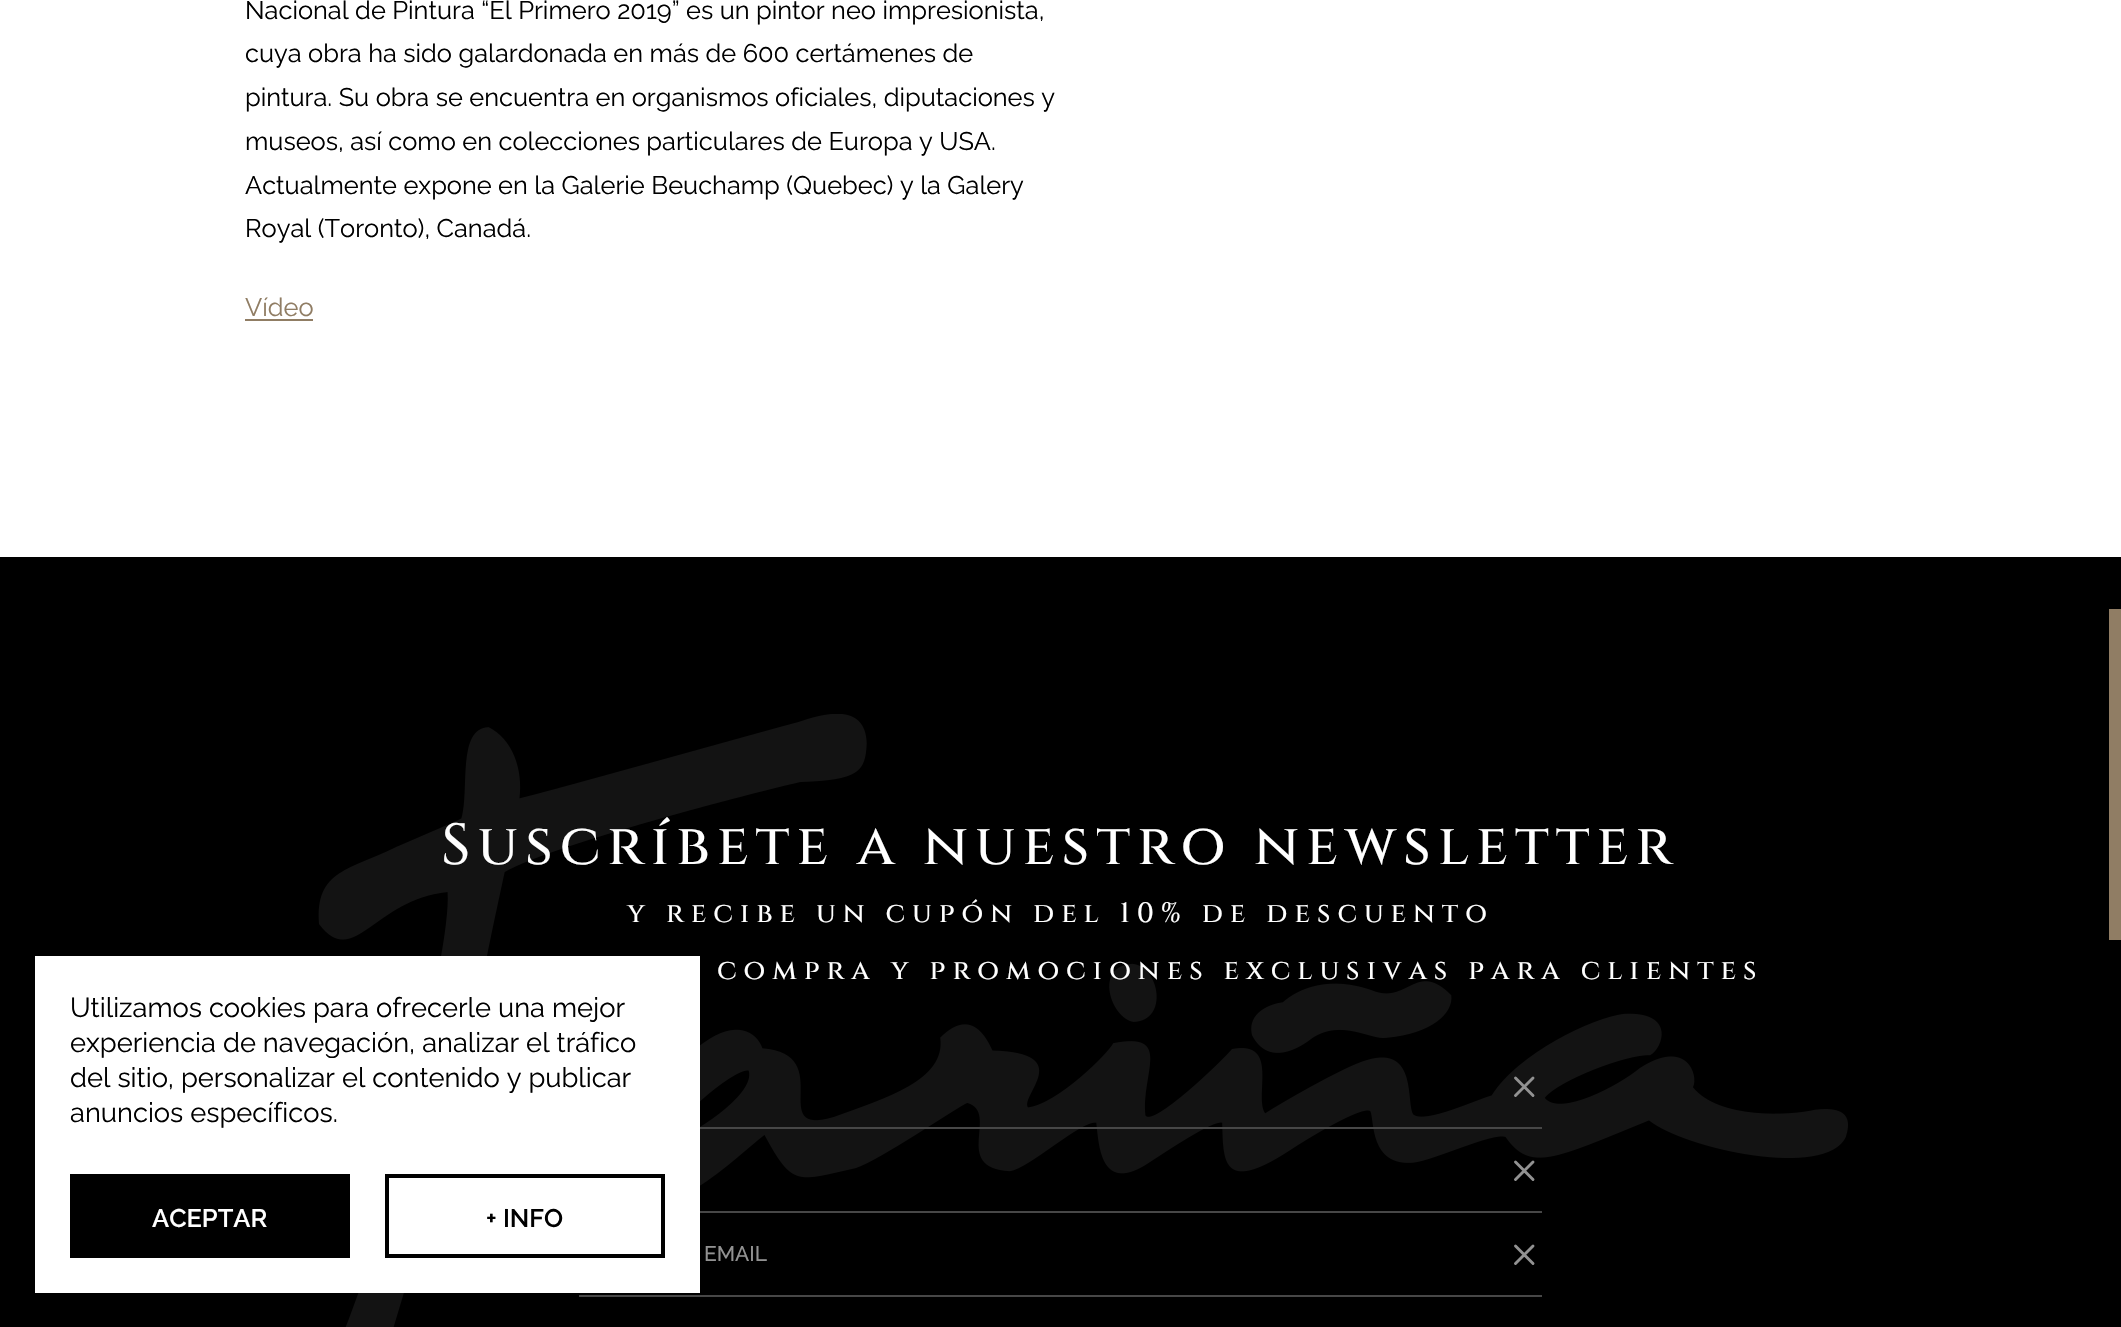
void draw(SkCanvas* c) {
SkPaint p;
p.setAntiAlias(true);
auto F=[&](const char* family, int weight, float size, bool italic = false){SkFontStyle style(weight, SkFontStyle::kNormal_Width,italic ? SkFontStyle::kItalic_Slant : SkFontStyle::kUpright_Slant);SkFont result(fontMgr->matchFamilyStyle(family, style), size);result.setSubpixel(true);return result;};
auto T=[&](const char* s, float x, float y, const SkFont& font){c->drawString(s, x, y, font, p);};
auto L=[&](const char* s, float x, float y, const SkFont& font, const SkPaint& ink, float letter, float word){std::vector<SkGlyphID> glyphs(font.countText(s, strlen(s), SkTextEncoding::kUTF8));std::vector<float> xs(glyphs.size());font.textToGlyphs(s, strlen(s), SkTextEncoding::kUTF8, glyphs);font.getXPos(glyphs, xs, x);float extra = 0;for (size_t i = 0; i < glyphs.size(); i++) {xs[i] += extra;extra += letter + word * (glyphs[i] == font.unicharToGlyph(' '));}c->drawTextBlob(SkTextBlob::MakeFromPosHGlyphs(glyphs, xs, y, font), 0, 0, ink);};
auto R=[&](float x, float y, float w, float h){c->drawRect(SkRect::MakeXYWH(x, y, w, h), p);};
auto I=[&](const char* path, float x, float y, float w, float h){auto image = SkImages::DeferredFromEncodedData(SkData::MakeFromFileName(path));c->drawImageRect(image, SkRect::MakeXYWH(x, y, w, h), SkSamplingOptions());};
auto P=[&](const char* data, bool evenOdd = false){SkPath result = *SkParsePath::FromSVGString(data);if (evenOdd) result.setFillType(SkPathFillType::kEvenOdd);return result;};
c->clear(0xffffffff);
auto f1 = F("Raleway",400,25.4);
p.setColor(0xff000000);
T("Nacional de Pintura “El Primero 2019” es un pintor neo impresionista,",245,19,f1);
T("cuya obra ha sido galardonada en más de 600 certámenes de",245,62,f1);
T("pintura. Su obra se encuentra en organismos oficiales, diputaciones y",245,106,f1);
T("museos, así como en colecciones particulares de Europa y USA.",245,150,f1);
T("Actualmente expone en la Galerie Beuchamp (Quebec) y la Galery",245,194,f1);
T("Royal (Toronto), Canadá.",245,237,f1);
p.setColor(0xff907d64);
T("Vídeo",245,316,f1);
R(245,319,68,2);
p.setColor(0xff000000);
R(0,557,2121,770);
I("1.png",318,714,1530,613);
auto f2 = F("Cinzel",500,57.75);
p.setColor(0xffffffff);
L("Suscríbete a nuestro newsletter",441,864,f2,p,7,0);
auto f3 = F("Cinzel",500,28);
L("y recibe un cupón del 10% de descuento",627,922,f3,p,7,0);
L("compra y promociones exclusivas para clientes",717,979,f3,p,7,0);
p.setStroke(true);
p.setStrokeWidth(2.9);
p.setStrokeCap(SkPaint::kRound_Cap);
p.setStrokeJoin(SkPaint::kRound_Join);
p.setColor(0xff929292);
c->drawPath(P("M1533 1078l-17.5 17.5m0-17.5l17.5 17.5"),p);
p.setStroke(false);
p.setColor(0xff474747);
R(700,1127,842,2);
p.setStroke(true);
p.setColor(0xff929292);
c->drawPath(P("M1533 1162l-17.5 17.5m0-17.5l17.5 17.5"),p);
p.setStroke(false);
p.setColor(0xff474747);
R(700,1211,842,2);
auto f4 = F("Raleway",500,21);
p.setColor(0xff929292);
T("EMAIL",704,1261,f4);
p.setStroke(true);
c->drawPath(P("M1533 1246l-17.5 17.5m0-17.5l17.5 17.5"),p);
p.setStroke(false);
p.setColor(0xff474747);
R(579,1295,963,2);
p.setColor(0xff907d64);
c->drawRect(SkRect::MakeXYWH(2110,610,10,329),p);
p.setStroke(true);
p.setStrokeWidth(2);
p.setStrokeCap(SkPaint::kButt_Cap);
p.setStrokeJoin(SkPaint::kMiter_Join);
c->drawRect(SkRect::MakeXYWH(2110,610,10,329),p);
p.setStroke(false);
p.setColor(0xffffffff);
R(35,956,665,337);
auto f5 = F("Raleway",400,27.3);
p.setColor(0xff000000);
T("Utilizamos cookies para ofrecerle una mejor",70,1017,f5);
T("experiencia de navegación, analizar el tráfico",70,1052,f5);
T("del sitio, personalizar el contenido y publicar",70,1087,f5);
T("anuncios específicos.",70,1122,f5);
R(70,1174,280,84);
auto f6 = F("Raleway",600,25.4);
p.setColor(0xffffffff);
T("ACEPTAR",152,1227,f6);
p.setStroke(true);
p.setStrokeWidth(4);
p.setColor(0xff000000);
c->drawRect(SkRect::MakeXYWH(387,1176,276,80),p);
p.setStroke(false);
T("+ INFO",486,1227,f6);
}
